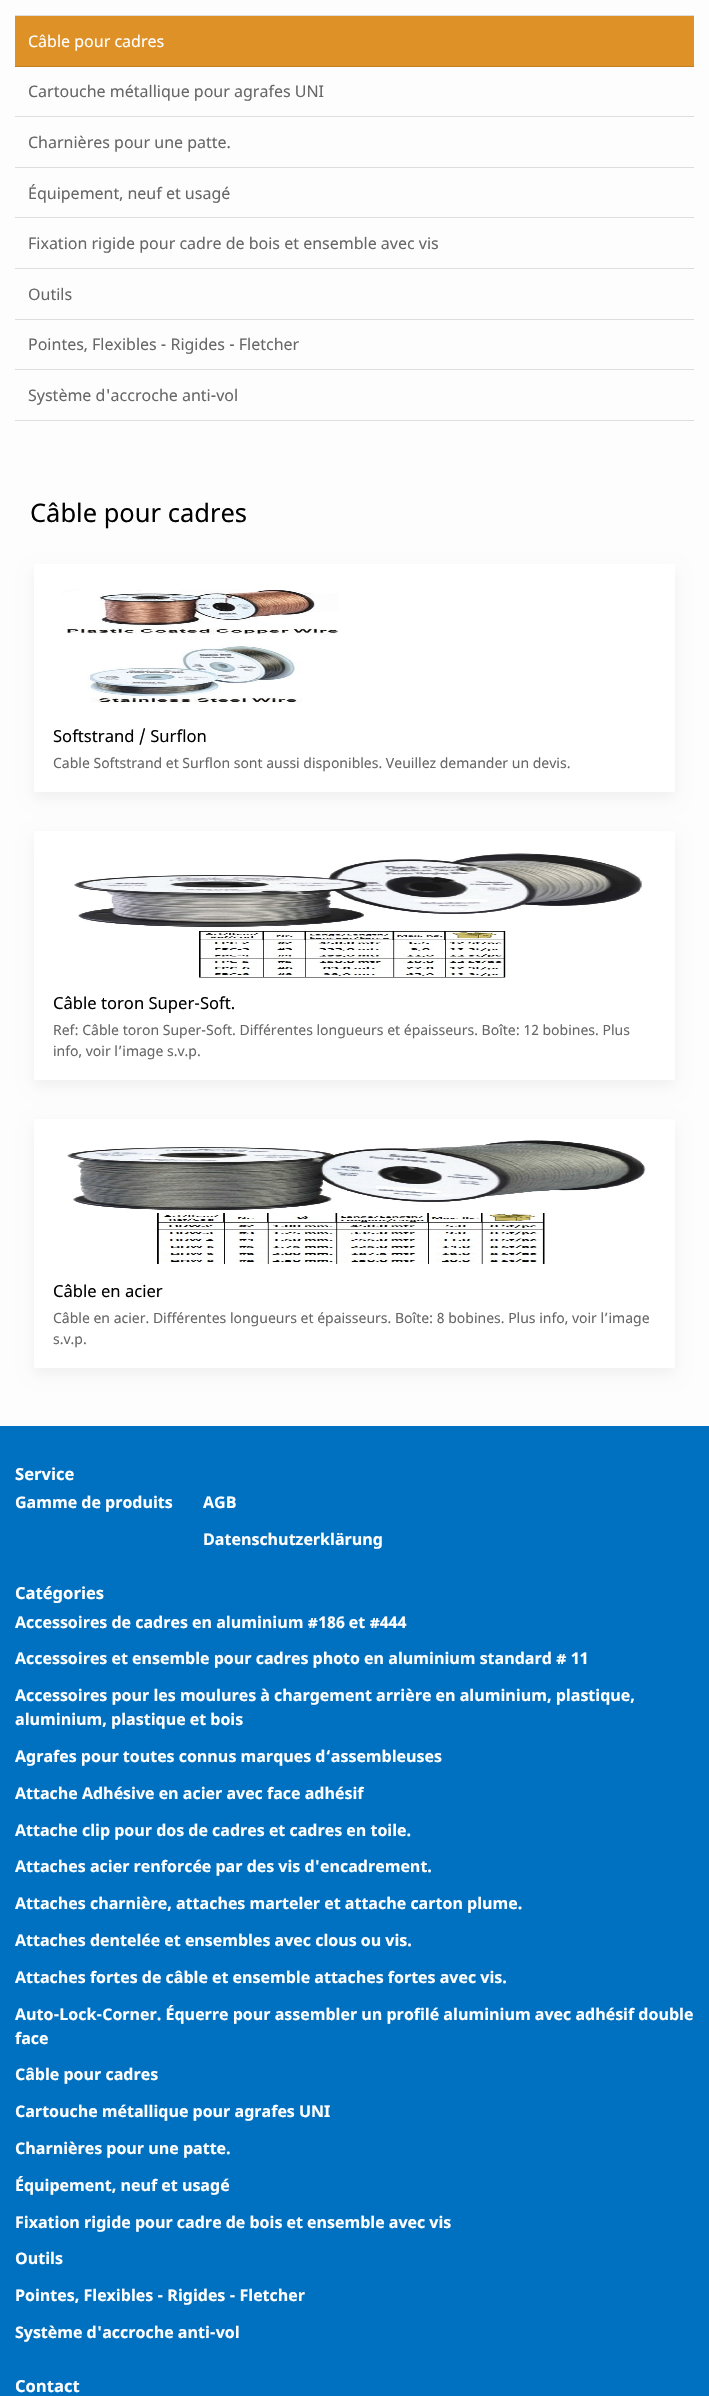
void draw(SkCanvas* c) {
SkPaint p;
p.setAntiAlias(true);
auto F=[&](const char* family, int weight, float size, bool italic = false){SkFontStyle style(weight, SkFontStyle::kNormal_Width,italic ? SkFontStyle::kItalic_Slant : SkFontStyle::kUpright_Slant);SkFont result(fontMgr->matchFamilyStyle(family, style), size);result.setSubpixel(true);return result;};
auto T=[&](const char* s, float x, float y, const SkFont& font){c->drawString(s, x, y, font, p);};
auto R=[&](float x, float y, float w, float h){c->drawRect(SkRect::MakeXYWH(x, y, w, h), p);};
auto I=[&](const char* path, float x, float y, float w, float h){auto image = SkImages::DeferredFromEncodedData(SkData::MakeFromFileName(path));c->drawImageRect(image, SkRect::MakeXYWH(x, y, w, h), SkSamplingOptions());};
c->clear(0xfffdfdfd);
p.setColor(0xffdddddd);
R(15,15,679,1);
p.setColor(0xffde9127);
R(15,16,679,50);
p.setColor(0xffc27f22);
R(15,66,679,1);
auto f1 = F("Noto Sans",400,16);
p.setColor(0xffffffff);
T("Câble pour cadres",28,47,f1);
p.setColor(0xffdddddd);
R(15,116,679,1);
p.setColor(0xff676767);
T("Cartouche métallique pour agrafes UNI",28,97,f1);
p.setColor(0xffdddddd);
R(15,167,679,1);
p.setColor(0xff676767);
T("Charnières pour une patte.",28,148,f1);
p.setColor(0xffdddddd);
R(15,217,679,1);
p.setColor(0xff676767);
T("Équipement, neuf et usagé",28,199,f1);
p.setColor(0xffdddddd);
R(15,268,679,1);
p.setColor(0xff676767);
T("Fixation rigide pour cadre de bois et ensemble avec vis",28,249,f1);
p.setColor(0xffdddddd);
R(15,319,679,1);
p.setColor(0xff676767);
T("Outils",28,300,f1);
p.setColor(0xffdddddd);
R(15,369,679,1);
p.setColor(0xff676767);
T("Pointes, Flexibles - Rigides - Fletcher",28,350,f1);
p.setColor(0xffdddddd);
R(15,420,679,1);
p.setColor(0xff676767);
T("Système d'accroche anti-vol",28,401,f1);
auto f2 = F("Noto Sans",400,25.5);
p.setColor(0xff010101);
T("Câble pour cadres",30,522,f2);
p.setColor(0x0d000000);
p.setMaskFilter(SkMaskFilter::MakeBlur(kNormal_SkBlurStyle, 6.5));
c->drawRect(SkRect::MakeXYWH(34,570,641,228),p);
p.setMaskFilter(nullptr);
p.setColor(0xffffffff);
R(34,564,641,228);
I("1.png",61,589,278,114);
auto f3 = F("Noto Sans",400,16.6);
p.setColor(0xff010101);
T("Softstrand / Surflon",53,742,f3);
auto f4 = F("Noto Sans",400,14);
p.setColor(0xff676767);
T("Cable Softstrand et Surflon sont aussi disponibles. Veuillez demander un devis.",53,768,f4);
p.setColor(0x0d000000);
p.setMaskFilter(SkMaskFilter::MakeBlur(kNormal_SkBlurStyle, 6.5));
c->drawRect(SkRect::MakeXYWH(34,837,641,249),p);
p.setMaskFilter(nullptr);
p.setColor(0xffffffff);
R(34,831,641,249);
I("2.png",74,853,568,125);
p.setColor(0xff010101);
T("Câble toron Super-Soft.",53,1009,f3);
p.setColor(0xff676767);
T("Ref: Câble toron Super-Soft. Différentes longueurs et épaisseurs. Boîte: 12 bobines. Plus",53,1035,f4);
T("info, voir l’image s.v.p.",53,1056,f4);
p.setColor(0x0d000000);
p.setMaskFilter(SkMaskFilter::MakeBlur(kNormal_SkBlurStyle, 6.5));
c->drawRect(SkRect::MakeXYWH(34,1125,641,249),p);
p.setMaskFilter(nullptr);
p.setColor(0xffffffff);
R(34,1119,641,249);
I("3.png",66,1140,581,124);
p.setColor(0xff010101);
T("Câble en acier",53,1297,f3);
p.setColor(0xff676767);
T("Câble en acier. Différentes longueurs et épaisseurs. Boîte: 8 bobines. Plus info, voir l’image",53,1323,f4);
T("s.v.p.",53,1344,f4);
p.setColor(0xff0070c0);
R(0,1426,709,970);
auto f5 = F("Noto Sans",700,16.6);
p.setColor(0xffffffff);
T("Service",15,1480,f5);
auto f6 = F("Noto Sans",700,16);
T("Gamme de produits",15,1508,f6);
T("AGB",203,1508,f6);
T("Datenschutzerklärung",203,1545,f6);
T("Catégories",15,1599,f5);
T("Accessoires de cadres en aluminium #186 et #444",15,1628,f6);
T("Accessoires et ensemble pour cadres photo en aluminium standard # 11",15,1664,f6);
T("Accessoires pour les moulures à chargement arrière en aluminium, plastique,",15,1701,f6);
T("aluminium, plastique et bois",15,1725,f6);
T("Agrafes pour toutes connus marques d‘assembleuses",15,1762,f6);
T("Attache Adhésive en acier avec face adhésif",15,1799,f6);
T("Attache clip pour dos de cadres et cadres en toile.",15,1836,f6);
T("Attaches acier renforcée par des vis d'encadrement.",15,1872,f6);
T("Attaches charnière, attaches marteler et attache carton plume.",15,1909,f6);
T("Attaches dentelée et ensembles avec clous ou vis.",15,1946,f6);
T("Attaches fortes de câble et ensemble attaches fortes avec vis.",15,1983,f6);
T("Auto-Lock-Corner. Équerre pour assembler un profilé aluminium avec adhésif double",15,2020,f6);
T("face",15,2044,f6);
T("Câble pour cadres",15,2080,f6);
T("Cartouche métallique pour agrafes UNI",15,2117,f6);
T("Charnières pour une patte.",15,2154,f6);
T("Équipement, neuf et usagé",15,2191,f6);
T("Fixation rigide pour cadre de bois et ensemble avec vis",15,2228,f6);
T("Outils",15,2264,f6);
T("Pointes, Flexibles - Rigides - Fletcher",15,2301,f6);
T("Système d'accroche anti-vol",15,2338,f6);
T("Contact",15,2392,f5);
}
